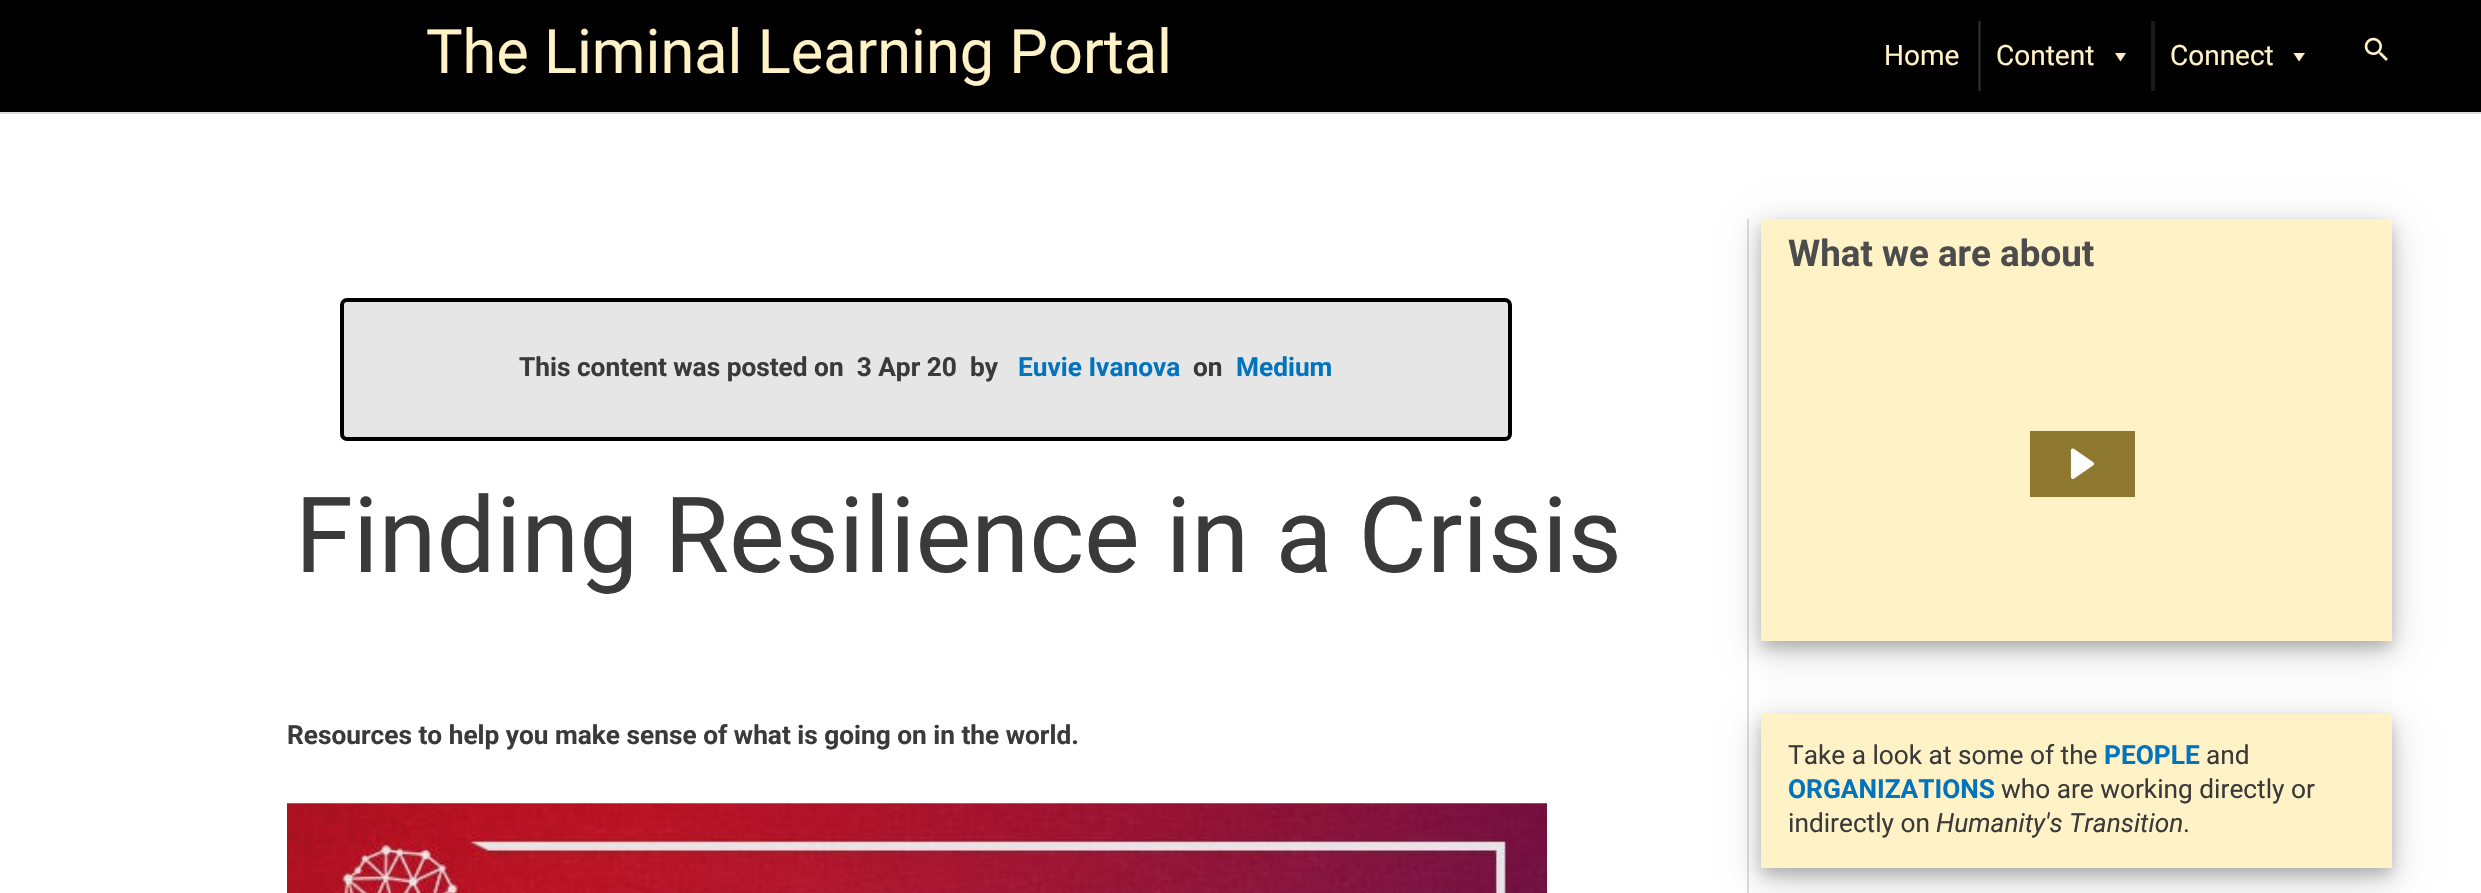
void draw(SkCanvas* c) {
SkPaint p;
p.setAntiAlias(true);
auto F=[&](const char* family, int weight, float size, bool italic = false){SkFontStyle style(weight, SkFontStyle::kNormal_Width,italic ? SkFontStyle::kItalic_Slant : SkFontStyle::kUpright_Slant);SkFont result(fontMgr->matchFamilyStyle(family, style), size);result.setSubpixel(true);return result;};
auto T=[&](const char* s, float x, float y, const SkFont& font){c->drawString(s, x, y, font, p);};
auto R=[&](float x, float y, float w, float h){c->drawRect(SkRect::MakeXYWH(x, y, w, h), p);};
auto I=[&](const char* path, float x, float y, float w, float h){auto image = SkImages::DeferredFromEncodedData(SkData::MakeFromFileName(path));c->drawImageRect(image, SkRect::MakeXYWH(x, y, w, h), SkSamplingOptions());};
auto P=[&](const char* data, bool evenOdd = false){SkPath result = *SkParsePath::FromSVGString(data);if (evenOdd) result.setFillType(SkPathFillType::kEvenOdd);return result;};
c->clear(0xffffffff);
p.setColor(0xff000000);
R(0,0,2481,112);
p.setColor(0xff1a1a1a);
R(1978,21,1,70);
p.setColor(0xffdddddd);
R(0,112,2481,2);
auto f1 = F("Roboto",400,61.25);
p.setColor(0xfffff2c6);
T("The Liminal Learning Portal",426,73,f1);
auto f2 = F("Roboto",400,28);
T("Home",1884,65,f2);
p.setColor(0xff1a1a1a);
R(1980,21,1,70);
p.setColor(0xff313131);
R(1979,21,1,70);
p.setColor(0xfffff2c6);
T("Content",1996,65,f2);
c->drawPath(P("M2126 53l-5.5 8.5l-5.5-8.5z"),p);
p.setColor(0xff1a1a1a);
R(2151,21,4,70);
p.setColor(0xfffff2c6);
T("Connect",2170,65,f2);
c->drawPath(P("M2305 53l-6 8.5l-5.5-8.5z"),p);
I("1.png",2364,37,24,24);
p.setColor(0xffdddddd);
R(1747,219,2,674);
p.setColor(0xffe6e6e6);
c->drawRoundRect(SkRect::MakeXYWH(342,300,1168,139),5,5,p);
p.setStroke(true);
p.setStrokeWidth(4);
p.setColor(0xff000000);
c->drawRoundRect(SkRect::MakeXYWH(342,300,1168,139),5,5,p);
auto f3 = F("Roboto",700,26.25);
p.setStroke(false);
p.setColor(0xff3a3a3a);
T("This content was posted on  3 Apr 20  by",519,376,f3);
p.setColor(0xff0274be);
T("Euvie Ivanova",1018,376,f3);
p.setColor(0xff3a3a3a);
T("on",1193,376,f3);
p.setColor(0xff0274be);
T("Medium",1236,376,f3);
auto f4 = F("Roboto",400,105);
p.setColor(0xff3a3a3a);
T("Finding Resilience in a Crisis",295,572,f4);
T("Resources to help you make sense of what is going on in the world.",287,744,f3);
I("2.png",287,803,1260,90);
p.setColor(0x30000000);
p.setMaskFilter(SkMaskFilter::MakeBlur(kNormal_SkBlurStyle, 17.5));
c->drawRect(SkRect::MakeXYWH(1761,229,631,422),p);
p.setMaskFilter(nullptr);
p.setColor(0x33000000);
p.setMaskFilter(SkMaskFilter::MakeBlur(kNormal_SkBlurStyle, 7));
c->drawRect(SkRect::MakeXYWH(1761,226,631,422),p);
p.setMaskFilter(nullptr);
p.setColor(0xfffff2c6);
R(1761,219,631,422);
auto f5 = F("Roboto",700,36.75);
p.setColor(0xff4c4c4c);
T("What we are about",1788,266,f5);
p.setColor(0xff8e7830);
R(2030,431,105,66);
I("3.png",2070,448,24,31);
p.setColor(0x30000000);
p.setMaskFilter(SkMaskFilter::MakeBlur(kNormal_SkBlurStyle, 17.5));
c->drawRect(SkRect::MakeXYWH(1761,725,631,154),p);
p.setMaskFilter(nullptr);
p.setColor(0x33000000);
p.setMaskFilter(SkMaskFilter::MakeBlur(kNormal_SkBlurStyle, 7));
c->drawRect(SkRect::MakeXYWH(1761,721,631,154),p);
p.setMaskFilter(nullptr);
p.setColor(0xfffff2c6);
R(1761,714,631,154);
auto f6 = F("Roboto",400,26.25);
p.setColor(0xff3a3a3a);
T("Take a look at some of the",1788,764,f6);
p.setColor(0xff0274be);
T("PEOPLE",2104,764,f3);
p.setColor(0xff3a3a3a);
T("and",2206,764,f6);
p.setColor(0xff0274be);
T("ORGANIZATIONS",1788,798,f3);
p.setColor(0xff3a3a3a);
T("who are working directly or",2001,798,f6);
T("indirectly on",1788,832,f6);
auto f7 = F("Roboto",400,26.25,true);
T("Humanity's Transition",1936,832,f7);
T(".",2183,832,f6);
}
